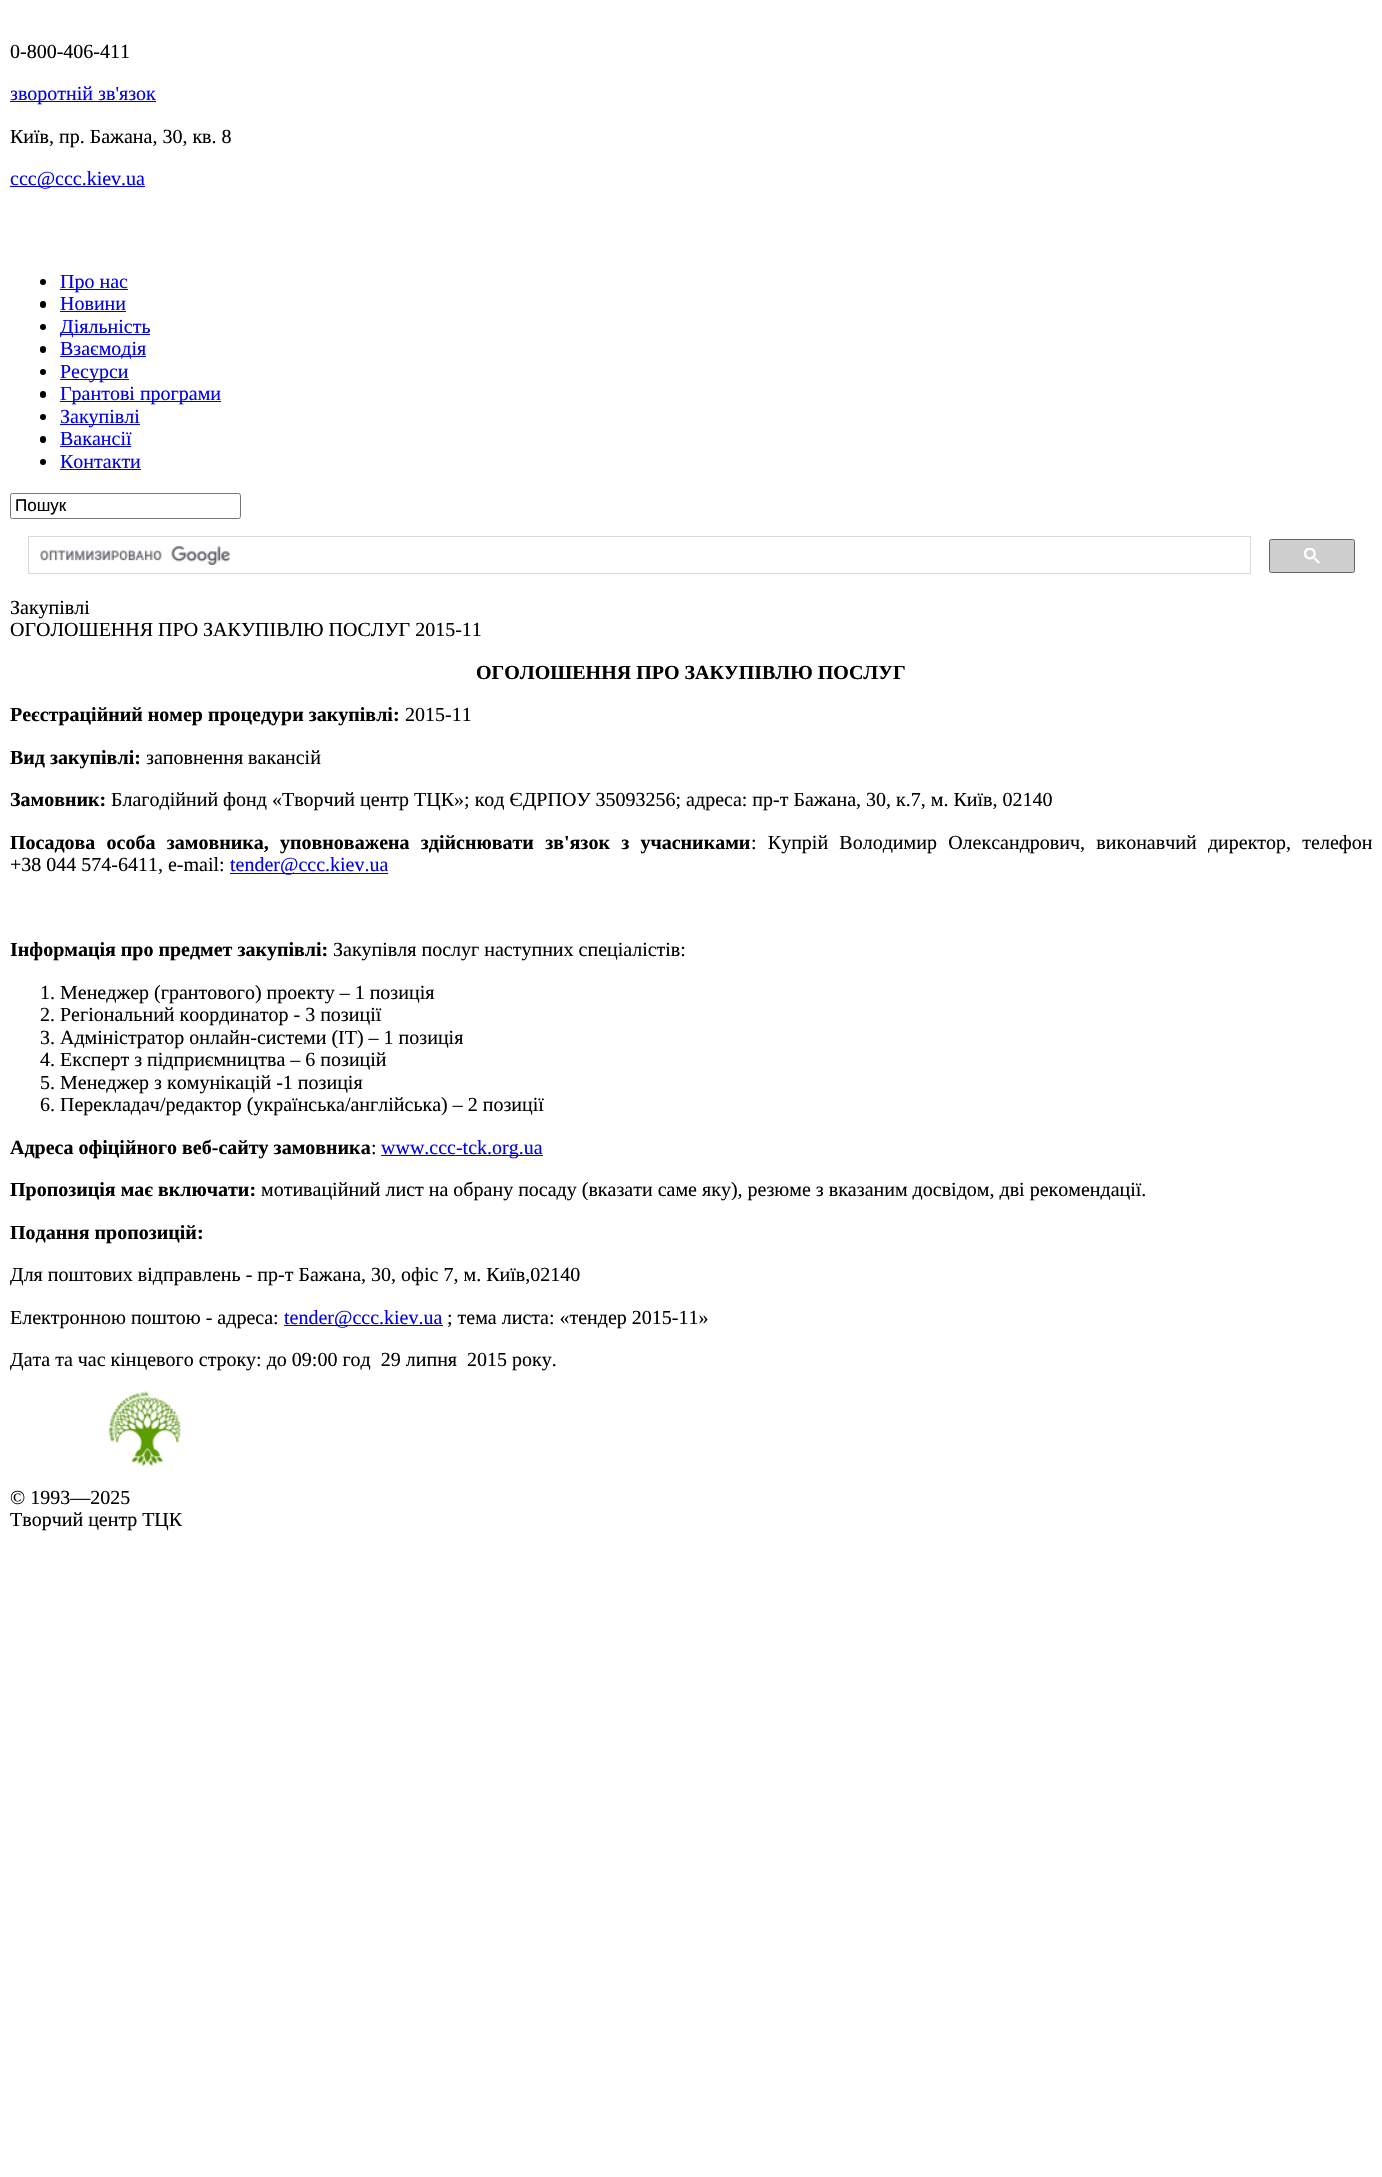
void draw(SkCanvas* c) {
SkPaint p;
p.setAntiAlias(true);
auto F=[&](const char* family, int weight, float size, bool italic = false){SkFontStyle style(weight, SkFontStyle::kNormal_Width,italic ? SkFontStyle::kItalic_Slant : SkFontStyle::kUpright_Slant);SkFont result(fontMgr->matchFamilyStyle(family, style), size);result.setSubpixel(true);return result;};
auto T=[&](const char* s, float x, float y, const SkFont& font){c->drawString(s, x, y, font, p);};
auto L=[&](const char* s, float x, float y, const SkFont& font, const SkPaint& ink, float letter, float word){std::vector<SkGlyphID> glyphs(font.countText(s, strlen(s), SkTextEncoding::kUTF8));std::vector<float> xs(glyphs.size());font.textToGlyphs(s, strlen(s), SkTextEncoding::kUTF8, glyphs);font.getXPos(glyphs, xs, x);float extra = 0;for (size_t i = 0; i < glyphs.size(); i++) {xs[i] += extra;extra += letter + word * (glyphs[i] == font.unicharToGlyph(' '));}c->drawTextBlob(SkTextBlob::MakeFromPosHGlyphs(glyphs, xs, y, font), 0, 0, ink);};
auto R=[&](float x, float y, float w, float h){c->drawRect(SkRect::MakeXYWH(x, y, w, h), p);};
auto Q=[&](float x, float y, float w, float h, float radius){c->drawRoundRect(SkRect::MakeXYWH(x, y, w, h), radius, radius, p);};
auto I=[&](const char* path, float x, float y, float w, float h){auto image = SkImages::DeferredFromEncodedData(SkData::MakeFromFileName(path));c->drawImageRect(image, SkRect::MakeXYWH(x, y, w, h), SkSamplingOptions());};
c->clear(0xffffffff);
auto f1 = F("Liberation Serif",400,20);
p.setColor(0xff000000);
T("0-800-406-411",10,58,f1);
p.setColor(0xff0000ee);
R(10,101,146,1);
T("зворотній зв'язок",10,100,f1);
p.setColor(0xff000000);
T("Київ, пр. Бажана, 30, кв. 8",10,143,f1);
p.setColor(0xff0000ee);
R(10,186,135,1);
T("ccc@ccc.kiev.ua",10,185,f1);
p.setColor(0xff000000);
c->drawCircle(43,282,3,p);
p.setColor(0xff0000ee);
R(60,289,68,1);
T("Про нас",60,288,f1);
p.setColor(0xff000000);
Q(40,301,6,7,3);
p.setColor(0xff0000ee);
T("Новини",60,310,f1);
R(60,311,66,1);
p.setColor(0xff000000);
c->drawCircle(43,327,3,p);
p.setColor(0xff0000ee);
R(60,334,90,1);
T("Діяльність",60,333,f1);
p.setColor(0xff000000);
Q(40,346,6,7,3);
p.setColor(0xff0000ee);
R(60,356,86,1);
T("Взаємодія",60,355,f1);
p.setColor(0xff000000);
c->drawCircle(43,372,3,p);
p.setColor(0xff0000ee);
R(60,379,69,1);
T("Ресурси",60,378,f1);
p.setColor(0xff000000);
Q(40,391,6,7,3);
p.setColor(0xff0000ee);
R(60,401,161,1);
T("Грантові програми",60,400,f1);
p.setColor(0xff000000);
c->drawCircle(43,417,3,p);
p.setColor(0xff0000ee);
R(60,424,80,1);
T("Закупівлі",60,423,f1);
p.setColor(0xff000000);
Q(40,436,6,7,3);
p.setColor(0xff0000ee);
T("Вакансії",60,445,f1);
R(60,446,71,1);
p.setColor(0xff000000);
c->drawCircle(43,462,3,p);
p.setColor(0xff0000ee);
T("Контакти",60,468,f1);
R(60,469,81,1);
p.setStroke(true);
p.setStrokeWidth(1);
p.setColor(0xff767676);
c->drawRoundRect(SkRect::MakeXYWH(10.5,493.5,230,25),2,2,p);
auto f2 = F("Liberation Sans",400,17);
p.setStroke(false);
p.setColor(0xff000000);
T("Пошук",15,511,f2);
p.setStroke(true);
p.setColor(0xffd9d9d9);
c->drawRect(SkRect::MakeXYWH(28.5,536.5,1222,37),p);
I("1.png",40,546,190,19);
p.setStroke(false);
p.setColor(0xffcecece);
c->drawRoundRect(SkRect::MakeXYWH(1269.5,539.5,85,33),2,2,p);
p.setStroke(true);
p.setColor(0xff666666);
c->drawRoundRect(SkRect::MakeXYWH(1269.5,539.5,85,33),2,2,p);
I("2.png",1304,548,16,16);
p.setStroke(false);
p.setColor(0xff000000);
T("Закупівлі",10,614,f1);
T("ОГОЛОШЕННЯ ПРО ЗАКУПІВЛЮ ПОСЛУГ 2015-11",10,636,f1);
auto f3 = F("Liberation Serif",700,20);
T("ОГОЛОШЕННЯ ПРО ЗАКУПІВЛЮ ПОСЛУГ",476,679,f3);
T("Реєстраційний номер процедури закупівлі:",10,721,f3);
T("2015-11",405,721,f1);
T("Вид закупівлі:",10,764,f3);
T("заповнення вакансій",146,764,f1);
T("Замовник:",10,806,f3);
T("Благодійний фонд «Творчий центр ТЦК»; код ЄДРПОУ 35093256; адреса: пр-т Бажана, 30, к.7, м. Київ, 02140",111,806,f1);
L("Посадова особа замовника, уповноважена здійснювати зв'язок з учасниками",10,849,f3,p,0,6.25);
L(": Купрій Володимир Олександрович, виконавчий директор, телефон",751,849,f1,p,0,6.25);
T("+38 044 574-6411, e-mail:",10,871,f1);
p.setColor(0xff0000ee);
R(230,873,158,1);
T("tender@ccc.kiev.ua",230,871,f1);
p.setColor(0xff000000);
T("Інформація про предмет закупівлі:",10,956,f3);
T("Закупівля послуг наступних спеціалістів:",333,956,f1);
T("1. Менеджер (грантового) проекту – 1 позиція",40,999,f1);
T("2. Регіональний координатор - 3 позиції",40,1021,f1);
T("3. Адміністратор онлайн-системи (ІТ) – 1 позиція",40,1044,f1);
T("4. Експерт з підприємництва – 6 позицій",40,1066,f1);
T("5. Менеджер з комунікацій -1 позиція",40,1089,f1);
T("6. Перекладач/редактор (українська/англійська) – 2 позиції",40,1111,f1);
T("Адреса офіційного веб-сайту замовника",10,1154,f3);
T(":",371,1154,f1);
p.setColor(0xff0000ee);
R(381,1155,162,1);
T("www.ccc-tck.org.ua",381,1154,f1);
p.setColor(0xff000000);
T("Пропозиція має включати:",10,1196,f3);
T("мотиваційний лист на обрану посаду (вказати саме яку), резюме з вказаним досвідом, дві рекомендації.",261,1196,f1);
T("Подання пропозицій:",10,1239,f3);
T("Для поштових відправлень - пр-т Бажана, 30, офіс 7, м. Київ,02140",10,1281,f1);
T("Електронною поштою - адреса:",10,1324,f1);
p.setColor(0xff0000ee);
R(284,1325,159,1);
T("tender@ccc.kiev.ua",284,1324,f1);
p.setColor(0xff000000);
T("; тема листа: «тендер 2015-11»",447,1324,f1);
T("Дата та час кінцевого строку: до 09:00 год  29 липня  2015 року.",10,1366,f1);
I("3.png",108,1391,74,76);
T("© 1993—2025",10,1504,f1);
T("Творчий центр ТЦК",10,1526,f1);
}
